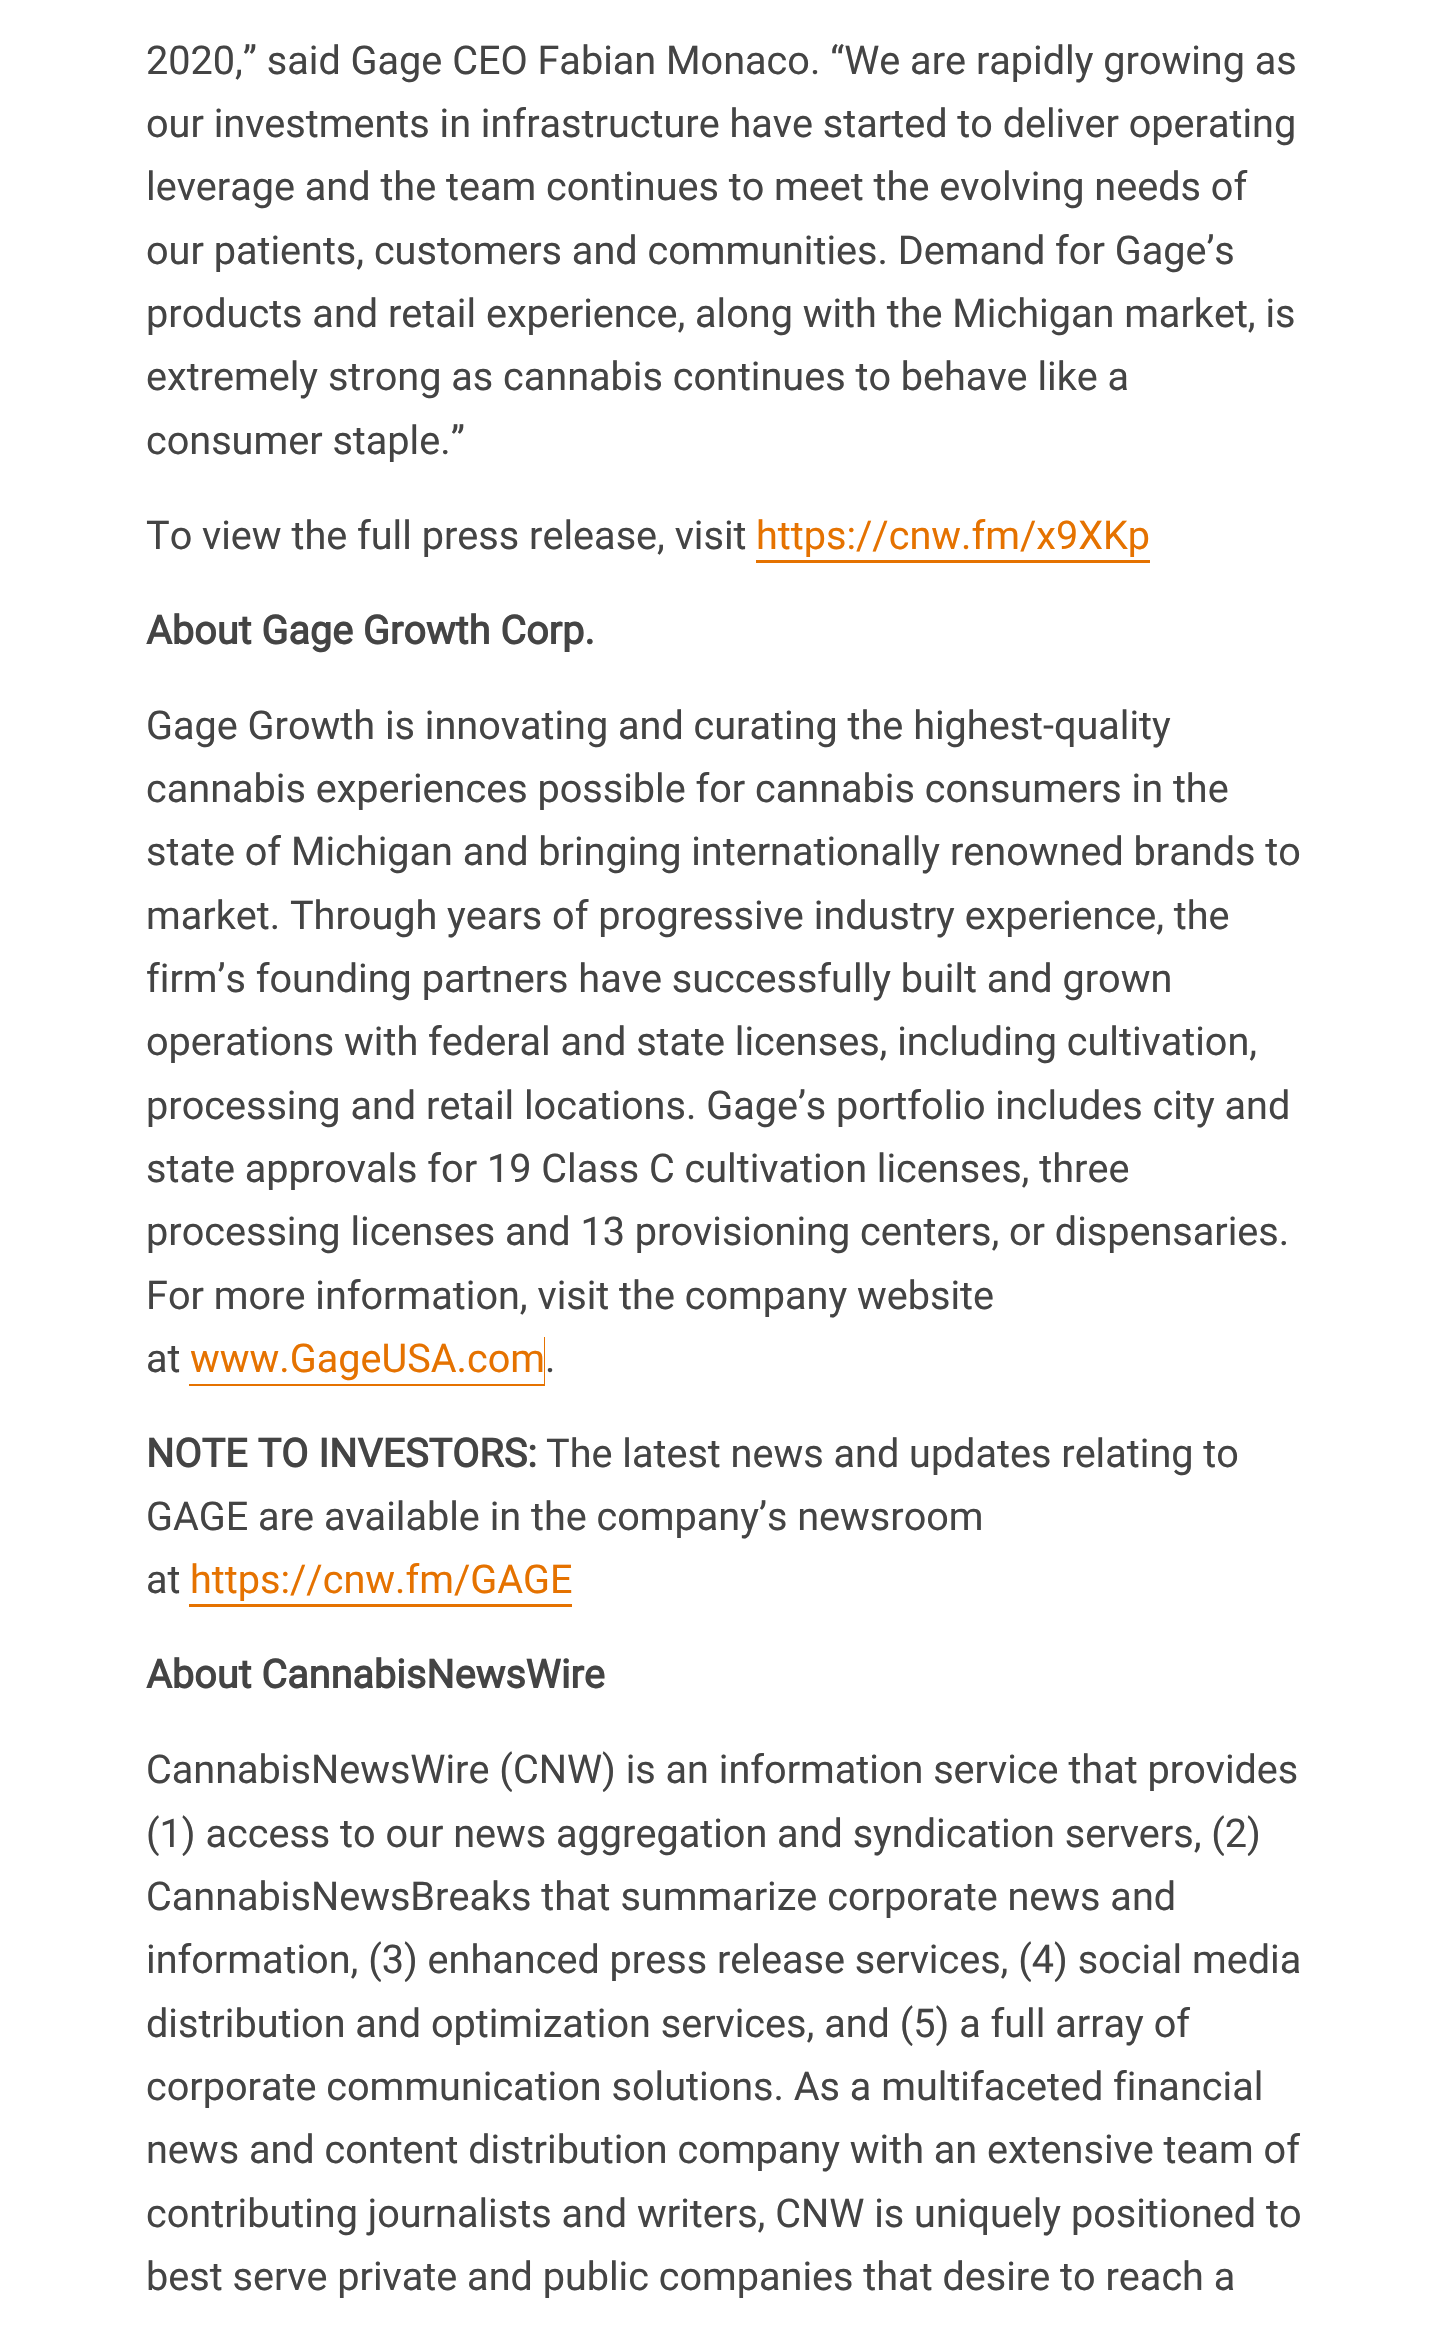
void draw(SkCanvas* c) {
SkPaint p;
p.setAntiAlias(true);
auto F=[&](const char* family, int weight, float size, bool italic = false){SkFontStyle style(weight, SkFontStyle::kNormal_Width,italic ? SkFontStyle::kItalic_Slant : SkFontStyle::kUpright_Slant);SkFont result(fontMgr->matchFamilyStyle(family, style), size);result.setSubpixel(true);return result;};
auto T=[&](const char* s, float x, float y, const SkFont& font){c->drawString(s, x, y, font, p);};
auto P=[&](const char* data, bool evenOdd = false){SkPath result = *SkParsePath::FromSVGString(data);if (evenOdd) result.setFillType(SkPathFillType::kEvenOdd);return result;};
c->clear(0xffffffff);
auto f1 = F("Roboto",400,39.6);
p.setColor(0xff444444);
T("2020,” said Gage CEO Fabian Monaco. “We are rapidly growing as",146,74,f1);
T("our investments in infrastructure have started to deliver operating",146,137,f1);
T("leverage and the team continues to meet the evolving needs of",146,200,f1);
T("our patients, customers and communities. Demand for Gage’s",146,264,f1);
T("products and retail experience, along with the Michigan market, is",146,327,f1);
T("extremely strong as cannabis continues to behave like a",146,390,f1);
T("consumer staple.”",146,454,f1);
T("To view the full press release, visit",146,549,f1);
p.setColor(0xffe57200);
T("https://cnw.fm/x9XKp",756,549,f1);
c->drawPath(P("M756 560v3h394v-50v47z"),p);
auto f2 = F("Roboto",700,39.6);
p.setColor(0xff444444);
T("About Gage Growth Corp.",146,644,f2);
T("Gage Growth is innovating and curating the highest-quality",146,739,f1);
T("cannabis experiences possible for cannabis consumers in the",146,802,f1);
T("state of Michigan and bringing internationally renowned brands to",146,865,f1);
T("market. Through years of progressive industry experience, the",146,929,f1);
T("firm’s founding partners have successfully built and grown",146,992,f1);
T("operations with federal and state licenses, including cultivation,",146,1055,f1);
T("processing and retail locations. Gage’s portfolio includes city and",146,1119,f1);
T("state approvals for 19 Class C cultivation licenses, three",146,1182,f1);
T("processing licenses and 13 provisioning centers, or dispensaries.",146,1245,f1);
T("For more information, visit the company website",146,1309,f1);
T("at",146,1372,f1);
p.setColor(0xffe57200);
c->drawPath(P("M189 1384v2h356v-49h-1v47z"),p);
T("www.GageUSA.com",190,1372,f1);
p.setColor(0xff444444);
T(".",545,1372,f1);
T("NOTE TO INVESTORS:",146,1467,f2);
T("The latest news and updates relating to",546,1467,f1);
T("GAGE are available in the company’s newsroom",146,1530,f1);
T("at",146,1593,f1);
p.setColor(0xffe57200);
T("https://cnw.fm/GAGE",190,1593,f1);
c->drawPath(P("M189 1604v3h383v-50v47z"),p);
p.setColor(0xff444444);
T("About CannabisNewsWire",146,1688,f2);
T("CannabisNewsWire (CNW) is an information service that provides",146,1783,f1);
T("(1) access to our news aggregation and syndication servers, (2)",146,1847,f1);
T("CannabisNewsBreaks that summarize corporate news and",146,1910,f1);
T("information, (3) enhanced press release services, (4) social media",146,1973,f1);
T("distribution and optimization services, and (5) a full array of",146,2037,f1);
T("corporate communication solutions. As a multifaceted financial",146,2100,f1);
T("news and content distribution company with an extensive team of",146,2163,f1);
T("contributing journalists and writers, CNW is uniquely positioned to",146,2227,f1);
T("best serve private and public companies that desire to reach a",146,2290,f1);
}
